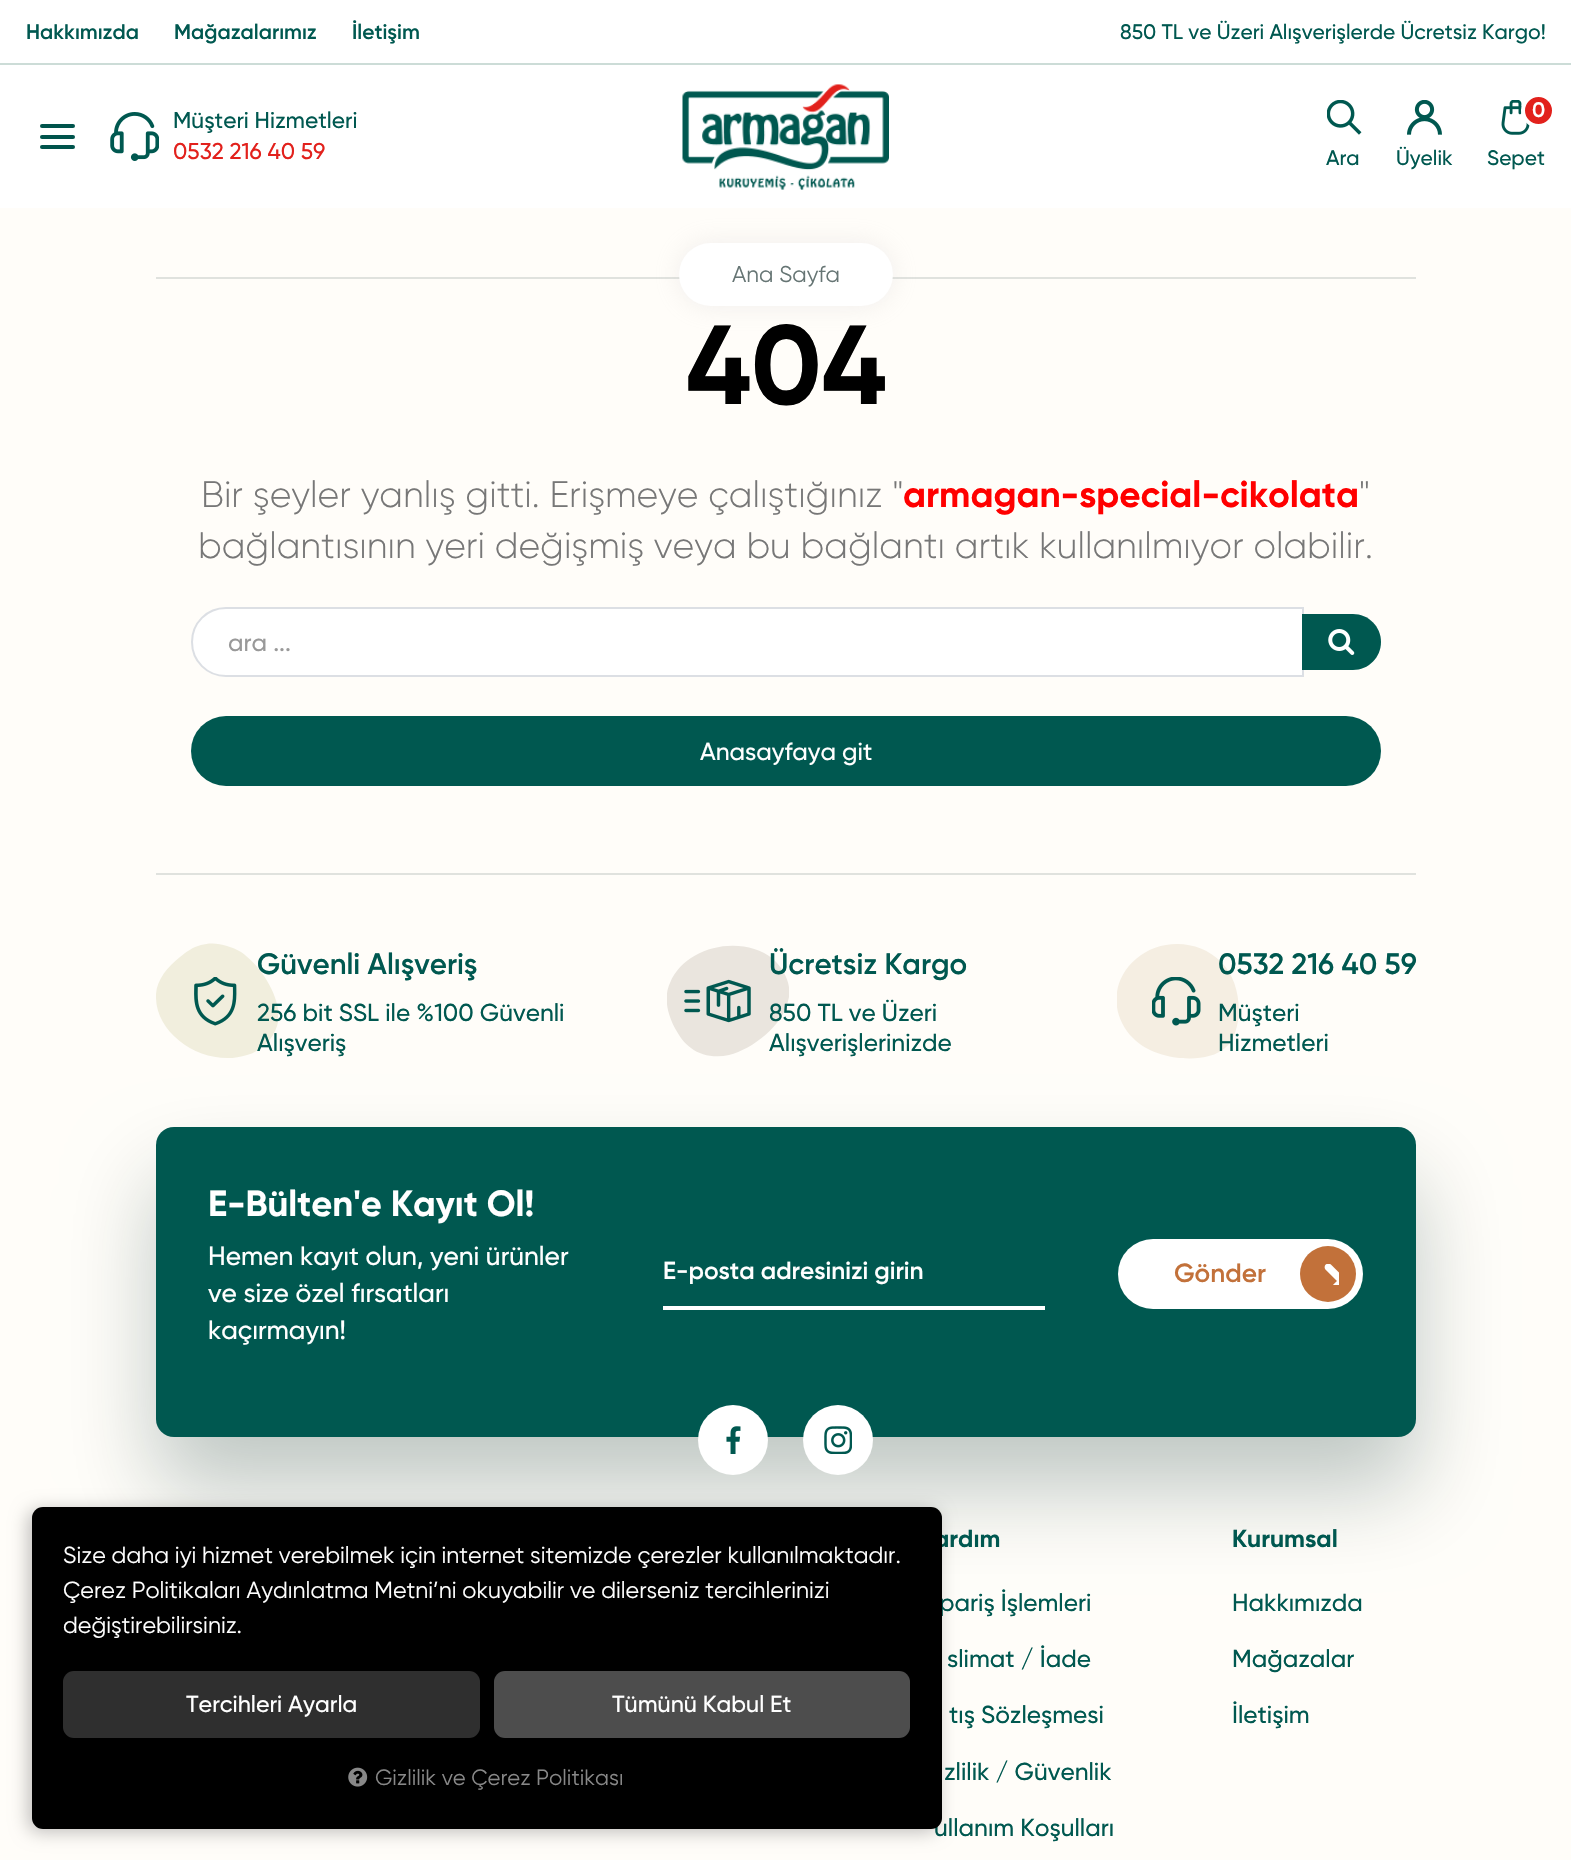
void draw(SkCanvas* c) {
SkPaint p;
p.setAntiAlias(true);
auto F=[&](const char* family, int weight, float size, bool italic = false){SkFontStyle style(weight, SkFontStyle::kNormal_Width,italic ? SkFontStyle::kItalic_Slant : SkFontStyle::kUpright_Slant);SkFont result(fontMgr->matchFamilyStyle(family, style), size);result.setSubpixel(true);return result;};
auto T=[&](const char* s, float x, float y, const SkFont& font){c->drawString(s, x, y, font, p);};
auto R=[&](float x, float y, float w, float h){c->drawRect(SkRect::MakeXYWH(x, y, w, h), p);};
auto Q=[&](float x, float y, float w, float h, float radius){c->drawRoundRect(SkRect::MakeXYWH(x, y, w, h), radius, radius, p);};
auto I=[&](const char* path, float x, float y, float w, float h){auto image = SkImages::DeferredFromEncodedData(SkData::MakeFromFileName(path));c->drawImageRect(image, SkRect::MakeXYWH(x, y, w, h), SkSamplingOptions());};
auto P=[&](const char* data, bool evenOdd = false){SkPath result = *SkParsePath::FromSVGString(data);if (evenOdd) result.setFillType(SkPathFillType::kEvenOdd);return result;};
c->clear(0xfffffdf9);
p.setColor(0xffffffff);
R(0,0,1571,63);
p.setColor(0xffccdcd7);
R(0,63,1571,2);
auto f1 = F("Gilroy",600,21);
p.setColor(0xff005850);
T("Hakkımızda",26,39,f1);
T("Mağazalarımız",174,39,f1);
T("İletişim",352,39,f1);
auto f2 = F("Gilroy",500,21);
T("850 TL ve Üzeri Alışverişlerde Ücretsiz Kargo!",1120,39,f2);
p.setColor(0xffe0e2de);
R(156,277,1260,2);
p.setColor(0x40c4c1c0);
p.setMaskFilter(SkMaskFilter::MakeBlur(kNormal_SkBlurStyle, 13));
c->drawRoundRect(SkRect::MakeXYWH(679,243,214,63),31.5,31.5,p);
p.setMaskFilter(nullptr);
p.setColor(0xffffffff);
R(0,65,1571,143);
p.setColor(0xff00544c);
Q(40,124,35,4,2);
Q(40,135,35,4,2);
Q(40,145,35,4,2);
I("1.png",110,112,49,49);
auto f3 = F("Gilroy",500,22.75);
p.setColor(0xff005850);
T("Müşteri Hizmetleri",173,128,f3);
p.setColor(0xffe2211c);
T("0532 216 40 59",173,159,f3);
I("2.png",682,84,207,106);
I("3.png",1327,100,35,35);
p.setColor(0xff005850);
T("Ara",1326,165,f2);
I("4.png",1407,100,35,35);
T("Üyelik",1396,165,f2);
I("5.png",1501,100,29,35);
p.setColor(0xffe2211c);
c->drawCircle(1538.5,110.5,15.5,p);
p.setStroke(true);
p.setStrokeWidth(4);
p.setColor(0xffffffff);
c->drawCircle(1538.5,110.5,15.5,p);
p.setStroke(false);
T("0",1532,117,f1);
p.setColor(0xff005850);
T("Sepet",1487,165,f2);
p.setColor(0xffffffff);
Q(679,243,214,63,31.5);
auto f4 = F("Gilroy",400,22.75);
p.setColor(0xff667574);
T("Ana Sayfa",732,282,f4);
auto f5 = F("Gilroy",700,112);
p.setColor(0xff000000);
T("404",686,404,f5);
auto f6 = F("Gilroy",300,36.75);
p.setColor(0xff777777);
T("Bir şeyler yanlış gitti. Erişmeye çalıştığınız \"",201,507,f6);
auto f7 = F("Gilroy",700,36.75);
p.setColor(0xffff0000);
T("armagan-special-cikolata",903,507,f7);
p.setColor(0xff777777);
T("\"",1359,507,f6);
T("bağlantısının yeri değişmiş veya bu bağlantı artık kullanılmıyor olabilir.",198,558,f6);
p.setColor(0xffffffff);
c->drawPath(P("M226 608h1077v68h-1077c-19 0-34-15-34-34c0-19 15-34 34-34z"),p);
p.setStroke(true);
p.setStrokeWidth(2);
p.setColor(0xffdcdfe4);
c->drawPath(P("M226 608h1077v68h-1077c-19 0-34-15-34-34c0-19 15-34 34-34z"),p);
auto f8 = F("Gilroy",500,24.5);
p.setStroke(false);
p.setColor(0xff999999);
T("ara ...",228,651,f8);
p.setColor(0xff005850);
c->drawPath(P("M1302 614h51c15.5 0 28 12.5 28 28c0 15.5-12.5 28-28 28h-51z"),p);
I("6.png",1328,629,27,26);
Q(191,716,1190,70,35);
p.setColor(0xffffffff);
T("Anasayfaya git",700,760,f8);
p.setColor(0xffe0e2de);
R(156,873,1260,2);
c->save();
c->clipRect(SkRect::MakeXYWH(156,940,122,122));
p.setColor(0xfff1eedd);
c->drawPath(P("M278 1022l-1 4c-4 13-15 25-30 29c-39 13-90-17-91-57c-1-16 11-31 24-41c6-5 13-10 21-12c13-4 28 0 40 7c20 14 41 46 37 70z",true),p);
c->restore();
auto f9 = F("Gilroy",600,29.5);
p.setColor(0xff005850);
T("Güvenli Alışveriş",257,974,f9);
T("256 bit SSL ile %100 Güvenli",257,1021,f8);
T("Alışveriş",257,1051,f8);
I("7.png",194,977,43,49);
c->save();
c->clipRect(SkRect::MakeXYWH(667,940,122,122));
p.setColor(0xffeae5de);
c->drawPath(P("M788 1001l1-4c2-14-5-28-16-38c-31-25-88-13-103 24c-7 15-2 33 6 47c4 7 8 13 15 18c10 8 25 10 38 7c24-6 54-30 59-54z",true),p);
c->restore();
p.setColor(0xff005850);
T("Ücretsiz Kargo",769,974,f9);
T("850 TL ve Üzeri",769,1021,f8);
T("Alışverişlerinizde",769,1051,f8);
I("8.png",684,979,67,44);
c->save();
c->clipRect(SkRect::MakeXYWH(1117,940,122,122));
p.setColor(0xfff5eee2);
c->drawPath(P("M1133 1038c-23-23-22-58 3-79c24-21 63-20 85 3c23 22 23 70 4 86c-19 17-70 13-92-10z",true),p);
c->restore();
p.setColor(0xff005850);
T("0532 216 40 59",1218,974,f9);
T("Müşteri",1218,1021,f8);
T("Hizmetleri",1218,1051,f8);
I("9.png",1152,977,49,49);
p.setColor(0x40002925);
p.setMaskFilter(SkMaskFilter::MakeBlur(kNormal_SkBlurStyle, 44));
c->drawRoundRect(SkRect::MakeXYWH(156,1180,1260,309),18,18,p);
p.setMaskFilter(nullptr);
p.setColor(0xff005850);
Q(156,1127,1260,310,18);
auto f10 = F("Gilroy",700,36.25);
p.setColor(0xffffffff);
T("E-Bülten'e Kayıt Ol!",208,1216,f10);
auto f11 = F("Gilroy",500,26.25);
T("Hemen kayıt olun, yeni ürünler",208,1265,f11);
T("ve size özel fırsatları",208,1302,f11);
T("kaçırmayın!",208,1339,f11);
R(663,1306,382,4);
auto f12 = F("Gilroy",600,24.5);
T("E-posta adresinizi girin",663,1279,f12);
Q(1118,1239,245,70,35);
auto f13 = F("Gilroy",600,26.25);
p.setColor(0xffc2713a);
T("Gönder",1174,1282,f13);
c->drawCircle(1328,1274,28,p);
I("10.png",1324,1264,15,21);
p.setColor(0xffffffff);
c->drawCircle(733,1440,35,p);
I("11.png",726,1426,15,28);
c->drawCircle(838,1440,35,p);
I("12.png",824,1426,28,28);
auto f14 = F("Gilroy",700,24.5);
p.setColor(0xff005850);
T("ardım",934,1547,f14);
T("pariş İşlemleri",939,1611,f8);
T("slimat / İade",947,1667,f8);
T("tış Sözleşmesi",949,1723,f8);
T("zlilik / Güvenlik",944,1780,f8);
T("ullanım Koşulları",934,1836,f8);
T("Kurumsal",1232,1547,f14);
T("Hakkımızda",1232,1611,f8);
T("Mağazalar",1232,1667,f8);
T("İletişim",1232,1723,f8);
p.setColor(0x40000000);
p.setMaskFilter(SkMaskFilter::MakeBlur(kNormal_SkBlurStyle, 9));
c->drawRoundRect(SkRect::MakeXYWH(28,1510,910,322),11,11,p);
p.setMaskFilter(nullptr);
p.setColor(0xff000000);
Q(32,1507,910,322,11);
auto f15 = F("Gilroy",400,23.3);
p.setColor(0xffffffff);
T("Size daha iyi hizmet verebilmek için internet sitemizde çerezler kullanılmaktadır.",63,1563,f15);
T("Çerez Politikaları Aydınlatma Metni’ni okuyabilir ve dilerseniz tercihlerinizi",63,1598,f15);
T("değiştirebilirsiniz.",63,1633,f15);
p.setColor(0xff2f2f2f);
Q(63,1671,417,67,11);
auto f16 = F("Gilroy",500,23.3);
p.setColor(0xffffffff);
T("Tercihleri Ayarla",186,1712,f16);
p.setColor(0xff4d4d4d);
Q(494,1671,416,67,11);
p.setColor(0xffffffff);
T("Tümünü Kabul Et",612,1712,f16);
I("13.png",348,1767,20,20);
auto f17 = F("Gilroy",400,22);
p.setColor(0xff888888);
T("Gizlilik ve Çerez Politikası",375,1785,f17);
}
